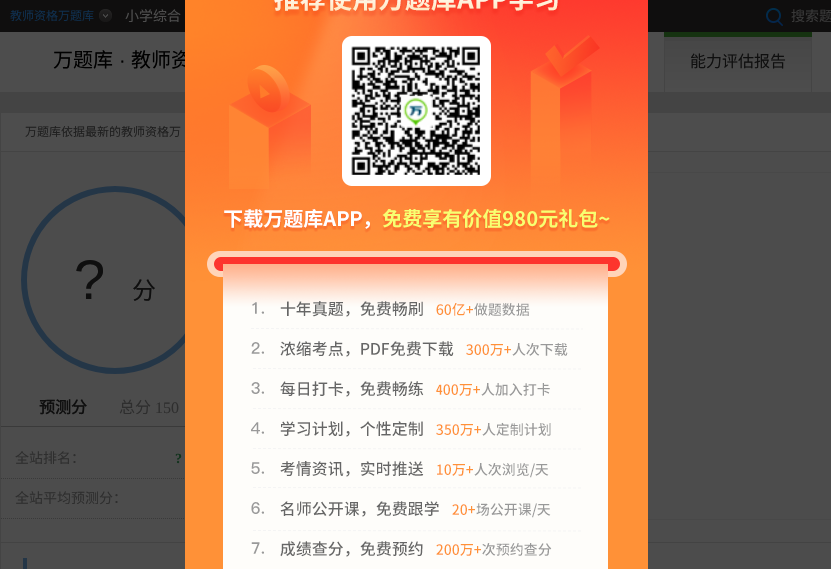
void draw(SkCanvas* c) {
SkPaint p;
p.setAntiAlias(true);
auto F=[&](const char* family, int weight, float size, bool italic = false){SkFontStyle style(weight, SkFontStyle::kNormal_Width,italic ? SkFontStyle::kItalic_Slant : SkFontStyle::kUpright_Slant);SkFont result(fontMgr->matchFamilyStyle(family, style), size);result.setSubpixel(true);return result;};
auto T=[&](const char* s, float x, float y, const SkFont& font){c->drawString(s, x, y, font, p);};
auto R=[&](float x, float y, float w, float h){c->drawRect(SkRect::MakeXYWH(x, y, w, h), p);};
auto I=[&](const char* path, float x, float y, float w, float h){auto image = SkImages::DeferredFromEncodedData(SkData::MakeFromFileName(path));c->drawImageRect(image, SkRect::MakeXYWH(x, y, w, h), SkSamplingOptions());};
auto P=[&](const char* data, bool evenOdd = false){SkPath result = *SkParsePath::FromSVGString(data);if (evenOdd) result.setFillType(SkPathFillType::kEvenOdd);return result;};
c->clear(0xff444444);
p.setColor(0xff0f0e0e);
R(0,0,831,32);
p.setColor(0xff4d4d4d);
R(0,32,185,60);
auto f1 = F("Noto Sans CJK SC",400,20);
p.setColor(0xff000000);
T("教师资",131,67,f1);
p.setColor(0xff4c4c4c);
R(1,152,830,417);
p.setColor(0xff4d4d4d);
R(1,113,830,38);
p.setStroke(true);
p.setStrokeWidth(6);
p.setColor(0xff243647);
c->drawCircle(115,280,91,p);
p.setStrokeWidth(1);
p.setColor(0xff3a3a3a);
p.setPathEffect(SkDashPathEffect::Make({{1,1}}, 0));
c->drawPath(P("M1 478.5h216"),p);
p.setPathEffect(nullptr);
p.setPathEffect(SkDashPathEffect::Make({{1,1}}, 0));
c->drawPath(P("M1 518.5h216"),p);
p.setPathEffect(nullptr);
p.setStroke(false);
p.setColor(0xff434343);
R(0,542,831,1);
I("1.png",185,0,463,569);
I("2.png",351,46,129,129);
auto f2 = F("Noto Sans CJK SC",400,12);
p.setColor(0xff0f2e4d);
T("教师资格万题库",10,20,f2);
I("3.png",99,9,13,13);
auto f3 = F("Noto Sans CJK SC",400,14);
p.setColor(0xff4d4d4d);
T("小学综合",125,21,f3);
I("4.png",766,8,17,18);
p.setColor(0xff383838);
T("搜索题",791,21,f3);
p.setColor(0xff000000);
T("万题库",53,67,f1);
auto f4 = F("Liberation Sans",400,20);
T("·",119,67,f4);
p.setColor(0xff4d4d4d);
R(648,32,16,60);
p.setColor(0xff153210);
R(664,32,148,5);
{
const SkColor colors[] = {0xff464646,0xff4d4d4d};
const float stops[] = {0,1};
const SkPoint ends[] = {{738,37}, {738,92}};
p.setShader(SkGradientShader::MakeLinear(ends, colors, stops, 2, SkTileMode::kClamp));
p.setAlpha(255);
}
R(665,41,146,51);
auto f5 = F("Noto Sans CJK SC",400,16);
p.setShader(nullptr);
p.setColor(0xff0f0f0f);
T("能力评估报告",690,67,f5);
p.setColor(0xff4d4d4d);
R(812,32,19,60);
p.setColor(0xff1f1f1f);
T("万题库依据最新的教师资格万",25,136,f2);
p.setColor(0xff3a3a3a);
R(1,426,184,1);
auto f6 = F("Liberation Sans",400,56);
p.setColor(0xff0f0f0f);
T("?",74,299,f6);
auto f7 = F("Noto Sans CJK SC",400,24);
T("分",132,299,f7);
auto f8 = F("Noto Sans CJK SC",700,16);
T("预测分",39,413,f8);
p.setColor(0xff2e2e2e);
T("总分",119,413,f5);
auto f9 = F("Liberation Serif",400,16);
T("150",155,413,f9);
T("全站排名：",15,463,f3);
auto f10 = F("Liberation Serif",700,14);
p.setColor(0xff11321c);
T("?",175,463,f10);
p.setColor(0xff2e2e2e);
T("全站平均预测分：",15,503,f3);
p.setColor(0xff484848);
R(648,172,183,1);
R(648,519,183,1);
p.setColor(0xff243647);
R(23,558,4,11);
}
